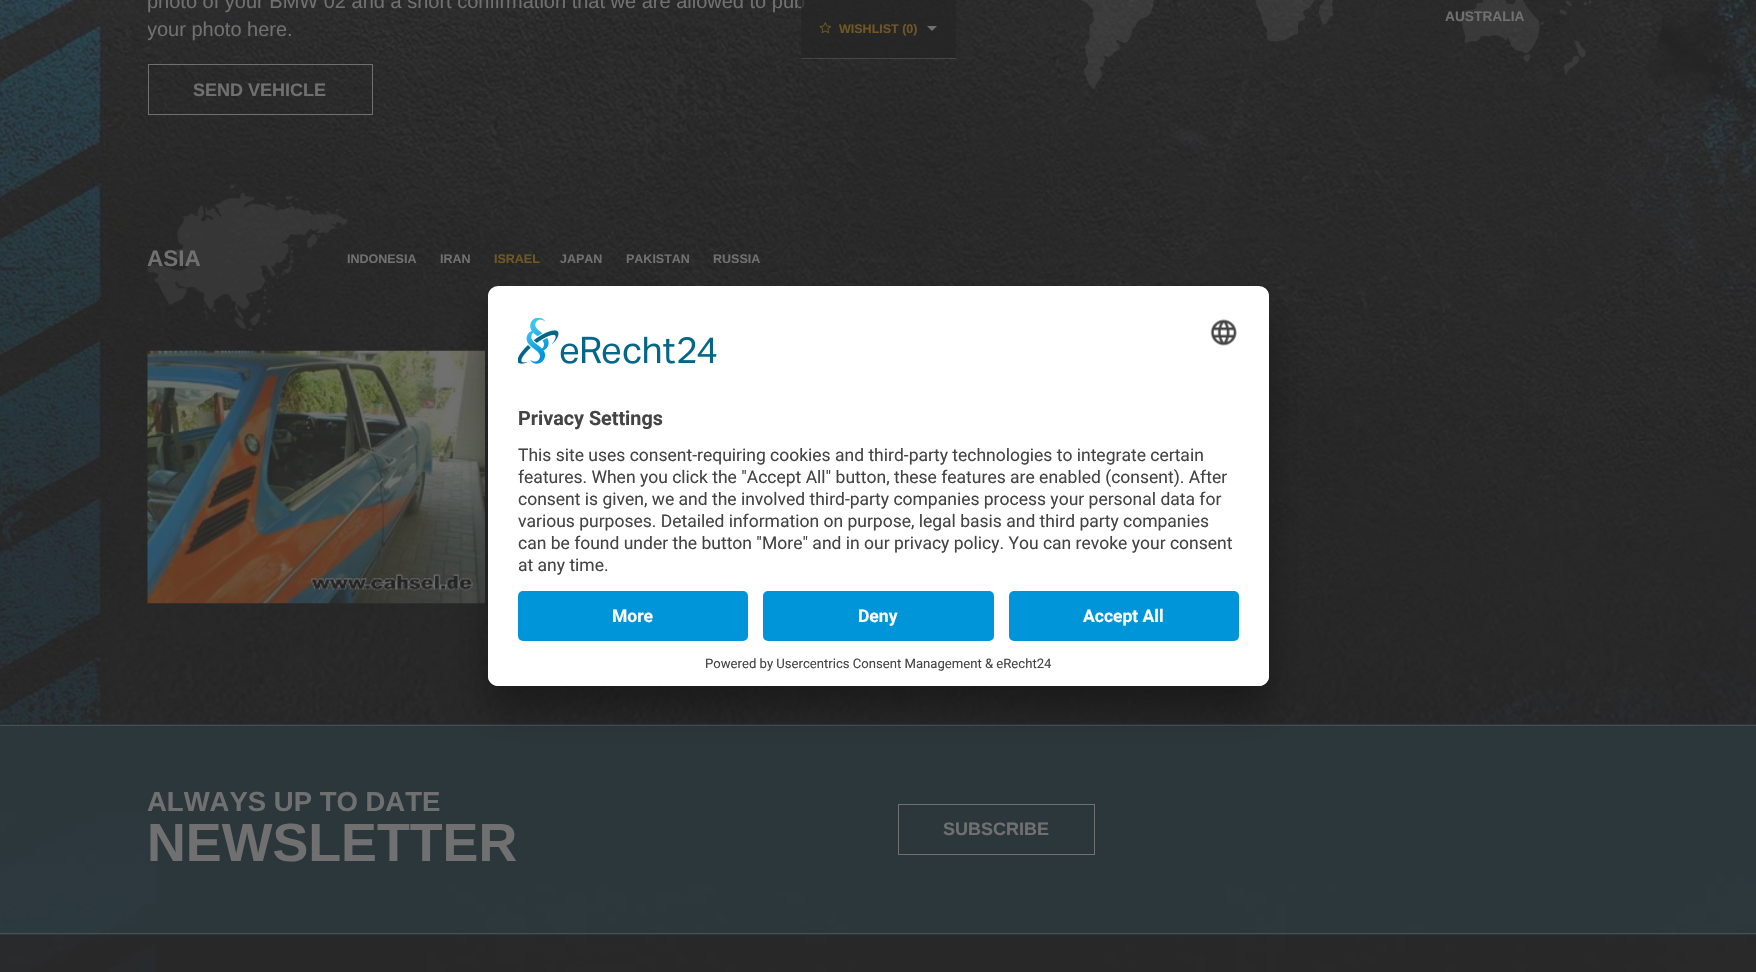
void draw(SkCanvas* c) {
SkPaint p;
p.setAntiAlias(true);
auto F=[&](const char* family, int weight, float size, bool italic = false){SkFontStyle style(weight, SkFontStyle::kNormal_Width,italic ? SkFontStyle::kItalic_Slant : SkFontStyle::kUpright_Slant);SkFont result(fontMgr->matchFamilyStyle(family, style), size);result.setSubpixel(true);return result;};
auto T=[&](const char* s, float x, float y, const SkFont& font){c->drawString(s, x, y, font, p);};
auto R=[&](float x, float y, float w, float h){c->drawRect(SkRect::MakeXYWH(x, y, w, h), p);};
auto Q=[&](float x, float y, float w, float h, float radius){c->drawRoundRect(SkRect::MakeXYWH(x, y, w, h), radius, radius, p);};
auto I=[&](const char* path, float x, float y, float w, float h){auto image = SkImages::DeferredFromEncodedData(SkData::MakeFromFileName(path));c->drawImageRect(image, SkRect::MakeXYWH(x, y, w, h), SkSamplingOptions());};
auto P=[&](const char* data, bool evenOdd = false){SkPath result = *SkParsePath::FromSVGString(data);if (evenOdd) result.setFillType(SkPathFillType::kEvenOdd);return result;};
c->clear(0xffffffff);
I("1.png",0,0,1756,724);
auto f1 = F("Liberation Sans",400,20);
p.setColor(0xff707070);
T("photo of your BMW 02 and a short confirmation that we are allowed to pub",147,8,f1);
c->save();
c->clipRect(SkRect::MakeXYWH(148,0,712,64));
T("your photo here.",147,36,f1);
c->restore();
p.setStroke(true);
p.setStrokeWidth(1);
c->drawRect(SkRect::MakeXYWH(148.5,64.5,224,50),p);
auto f2 = F("Liberation Sans",700,18);
p.setStroke(false);
T("SEND VEHICLE",193,96,f2);
I("2.png",1080,0,512,89);
auto f3 = F("Liberation Sans",700,13.75);
T("AUSTRALIA",1445,21,f3);
auto f4 = F("Liberation Sans",700,22.5);
T("ASIA",147,266,f4);
auto f5 = F("Liberation Sans",700,12.5);
T("INDONESIA",347,263,f5);
I("3.png",147,184,201,147);
T("IRAN",440,263,f5);
p.setColor(0xff705824);
T("ISRAEL",494,263,f5);
p.setColor(0xff707070);
T("JAPAN",560,263,f5);
T("PAKISTAN",626,263,f5);
T("RUSSIA",713,263,f5);
I("4.png",147,350,338,254);
p.setColor(0xb3242424);
R(801,0,155,58);
I("5.png",819,22,13,12);
p.setColor(0xff705824);
T("WISHLIST (0)",839,33,f5);
p.setColor(0xff707070);
c->drawPath(P("M927 26h10l-5 5z"),p);
p.setColor(0x66707070);
R(801,58,155,1);
I("6.png",0,723,1756,249);
p.setColor(0x59335261);
R(0,724,1756,211);
p.setColor(0xff474e51);
R(0,725,1756,1);
auto f6 = F("Liberation Sans",700,27.5);
p.setColor(0xff707070);
T("ALWAYS UP TO DATE",147,811,f6);
auto f7 = F("Liberation Sans",700,53.75);
T("NEWSLETTER",147,861,f7);
p.setStroke(true);
c->drawRect(SkRect::MakeXYWH(898.5,804.5,196,50),p);
p.setStroke(false);
T("SUBSCRIBE",943,835,f2);
p.setColor(0x66707070);
R(0,933,1756,1);
p.setColor(0x4d000000);
p.setMaskFilter(SkMaskFilter::MakeBlur(kNormal_SkBlurStyle, 17.5));
c->drawRoundRect(SkRect::MakeXYWH(488,311,781,400),10,10,p);
p.setMaskFilter(nullptr);
p.setColor(0xffffffff);
Q(488,286,781,400,10);
c->save();
c->clipPath(P("M498 286h761c5.5 0 10 4.5 10 10v380c0 5.5-4.5 10-10 10h-761c-5.5 0-10-4.5-10-10v-380c0-5.5 4.5-10 10-10z"),true);
c->clipPath(P("M498 286h761c5.5 0 10 4.5 10 10v285h-781v-285c0-5.5 4.5-10 10-10z"),true);
R(488,288,781,293);
c->restore();
I("7.png",518,318,199,46);
I("8.png",1210,319,27,27);
auto f8 = F("Roboto",700,19.75);
p.setColor(0xff444444);
T("Privacy Settings",518,425,f8);
auto f9 = F("Roboto",400,17.5);
T("This site uses consent-requiring cookies and third-party technologies to integrate certain",518,461,f9);
T("features. When you click the \"Accept All\" button, these features are enabled (consent). After",518,483,f9);
T("consent is given, we and the involved third-party companies process your personal data for",518,505,f9);
T("various purposes. Detailed information on purpose, legal basis and third party companies",518,527,f9);
T("can be found under the button \"More\" and in our privacy policy. You can revoke your consent",518,549,f9);
T("at any time.",518,571,f9);
p.setColor(0xffffffff);
c->drawPath(P("M488 581h781v95c0 5.5-4.5 10-10 10h-761c-5.5 0-10-4.5-10-10z"),p);
p.setColor(0xff0094d8);
Q(518,591,230,50,5);
auto f10 = F("Roboto",700,17.5);
p.setColor(0xffffffff);
T("More",612,622,f10);
p.setColor(0xff0094d8);
Q(763,591,231,50,5);
p.setColor(0xffffffff);
T("Deny",858,622,f10);
p.setColor(0xff0094d8);
Q(1009,591,230,50,5);
p.setColor(0xffffffff);
T("Accept All",1083,622,f10);
auto f11 = F("Roboto",400,13.1);
p.setColor(0xff444444);
T("Powered by Usercentrics Consent Management & eRecht24",705,668,f11);
}
